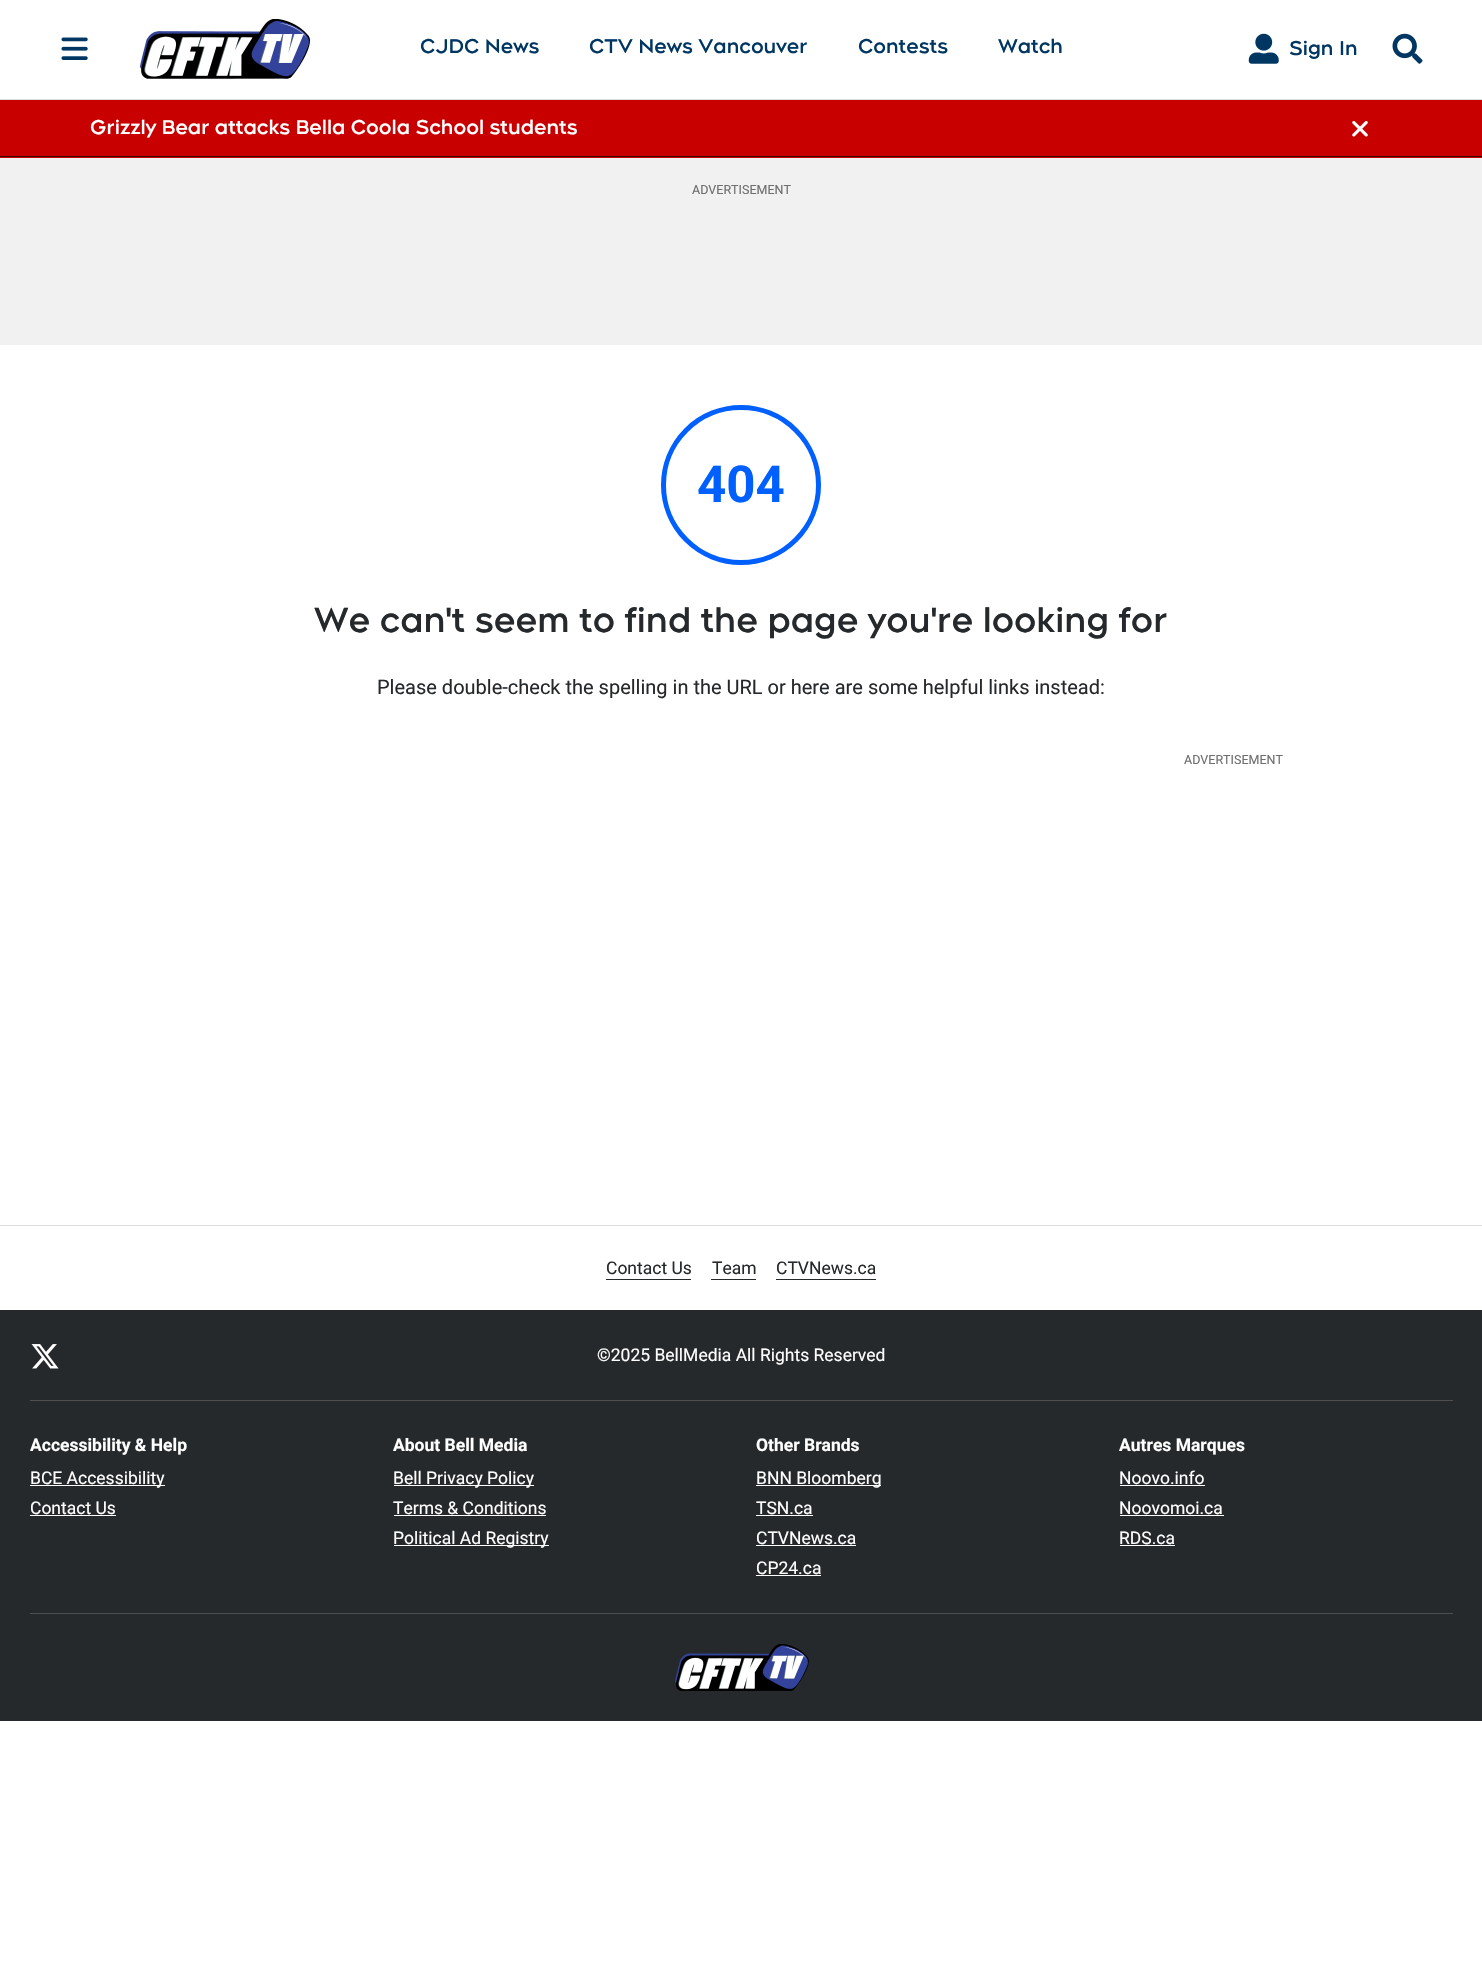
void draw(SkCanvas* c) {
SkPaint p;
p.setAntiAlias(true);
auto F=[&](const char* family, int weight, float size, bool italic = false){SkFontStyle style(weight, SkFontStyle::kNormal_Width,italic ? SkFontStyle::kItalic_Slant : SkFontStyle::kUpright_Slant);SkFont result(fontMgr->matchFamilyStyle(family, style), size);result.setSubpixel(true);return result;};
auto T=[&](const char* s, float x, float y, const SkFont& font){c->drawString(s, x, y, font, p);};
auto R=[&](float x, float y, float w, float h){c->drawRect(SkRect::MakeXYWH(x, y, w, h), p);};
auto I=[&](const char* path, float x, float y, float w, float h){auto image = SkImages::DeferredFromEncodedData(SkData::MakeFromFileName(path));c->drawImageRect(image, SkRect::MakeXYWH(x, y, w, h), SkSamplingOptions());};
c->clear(0xffffffff);
p.setColor(0xffdddddd);
R(0,99,1482,1);
I("1.png",61,37,27,23);
I("2.png",140,19,170,60);
auto f1 = F("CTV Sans",700,20);
p.setColor(0xff003662);
T("CJDC News",420,53,f1);
T("CTV News Vancouver",589,53,f1);
T("Contests",858,53,f1);
T("Watch",998,53,f1);
I("3.png",1248,33,31,31);
T("Sign In",1289,55,f1);
I("4.png",1392,33,31,31);
p.setColor(0xffc80000);
R(0,100,1482,58);
p.setColor(0xff370a00);
R(0,156,1482,1);
p.setColor(0xffffffff);
T("Grizzly Bear attacks Bella Coola School students",90,134,f1);
I("5.png",1352,121,16,16);
p.setColor(0xfff1f1f1);
R(0,158,1482,187);
auto f2 = F("Roboto",400,12.5);
p.setColor(0xff6e6e6e);
T("ADVERTISEMENT",692,194,f2);
p.setStroke(true);
p.setStrokeWidth(5);
p.setColor(0xff005fff);
c->drawCircle(741,485,77.5,p);
auto f3 = F("Roboto",700,51);
p.setStroke(false);
T("404",697,502,f3);
auto f4 = F("CTV Sans",700,35);
p.setColor(0xff26292b);
T("We can't seem to find the page you're looking for",314,632,f4);
auto f5 = F("Roboto",400,20);
T("Please double-check the spelling in the URL or here are some helpful links instead:",377,694,f5);
p.setColor(0xff6e6e6e);
T("ADVERTISEMENT",1184,764,f2);
p.setColor(0xff26292b);
R(0,1310,1482,411);
p.setColor(0xffdddddd);
R(0,1225,1482,1);
auto f6 = F("Roboto",400,17.5);
p.setColor(0xff26292b);
T("Contact Us",606,1274,f6);
R(606,1279,85,1);
T("Team",712,1274,f6);
R(711,1279,45,1);
T("CTVNews.ca",776,1274,f6);
R(776,1279,100,1);
p.setColor(0xff4f4f4f);
R(30,1400,1423,1);
I("6.png",31,1344,28,25);
p.setColor(0xffffffff);
T("©2025 BellMedia All Rights Reserved",597,1361,f6);
auto f7 = F("Roboto",700,17.5);
T("Accessibility & Help",30,1451,f7);
R(30,1485,135,1);
T("BCE Accessibility",30,1484,f6);
T("Contact Us",30,1514,f6);
R(30,1515,86,1);
T("About Bell Media",393,1451,f7);
R(394,1485,140,1);
T("Bell Privacy Policy",393,1484,f6);
T("Terms & Conditions",393,1514,f6);
R(394,1515,152,1);
R(394,1545,155,1);
T("Political Ad Registry",393,1544,f6);
T("Other Brands",756,1451,f7);
R(756,1485,125,1);
T("BNN Bloomberg",756,1484,f6);
T("TSN.ca",756,1514,f6);
R(756,1515,57,1);
T("CTVNews.ca",756,1544,f6);
R(756,1545,100,1);
T("CP24.ca",756,1574,f6);
R(756,1575,65,1);
T("Autres Marques",1119,1451,f7);
T("Noovo.info",1119,1484,f6);
R(1120,1485,85,1);
T("Noovomoi.ca",1119,1514,f6);
R(1120,1515,104,1);
T("RDS.ca",1119,1544,f6);
R(1120,1545,55,1);
p.setColor(0xff4f4f4f);
R(30,1613,1423,1);
I("7.png",675,1644,134,47);
}
